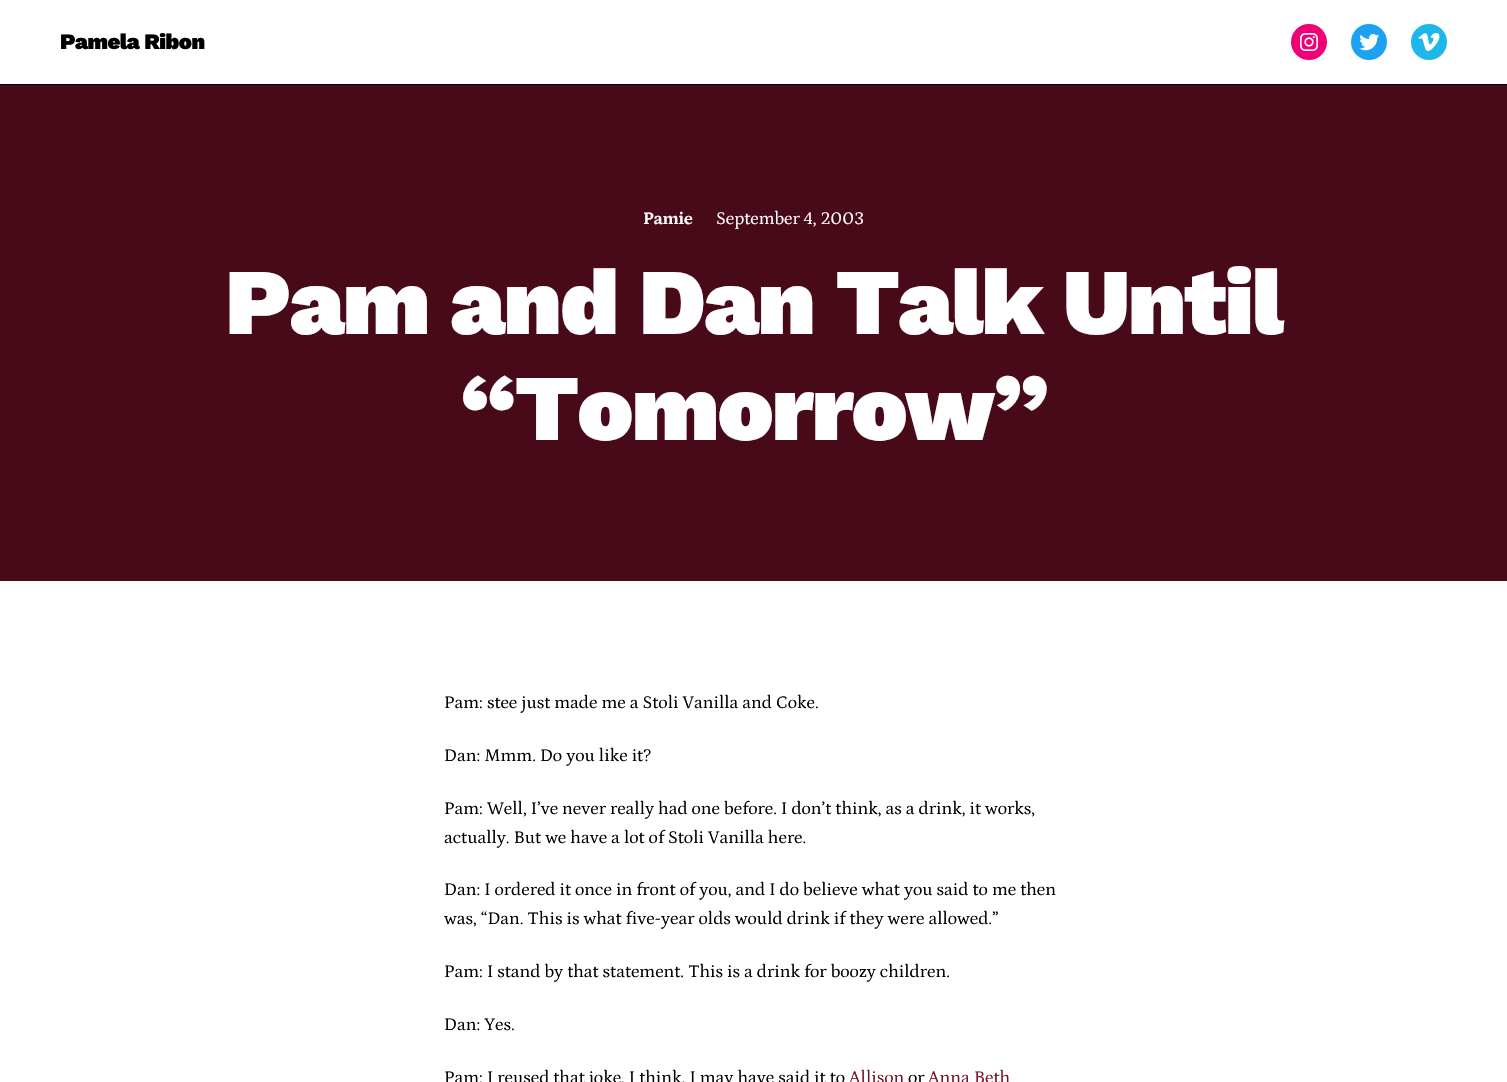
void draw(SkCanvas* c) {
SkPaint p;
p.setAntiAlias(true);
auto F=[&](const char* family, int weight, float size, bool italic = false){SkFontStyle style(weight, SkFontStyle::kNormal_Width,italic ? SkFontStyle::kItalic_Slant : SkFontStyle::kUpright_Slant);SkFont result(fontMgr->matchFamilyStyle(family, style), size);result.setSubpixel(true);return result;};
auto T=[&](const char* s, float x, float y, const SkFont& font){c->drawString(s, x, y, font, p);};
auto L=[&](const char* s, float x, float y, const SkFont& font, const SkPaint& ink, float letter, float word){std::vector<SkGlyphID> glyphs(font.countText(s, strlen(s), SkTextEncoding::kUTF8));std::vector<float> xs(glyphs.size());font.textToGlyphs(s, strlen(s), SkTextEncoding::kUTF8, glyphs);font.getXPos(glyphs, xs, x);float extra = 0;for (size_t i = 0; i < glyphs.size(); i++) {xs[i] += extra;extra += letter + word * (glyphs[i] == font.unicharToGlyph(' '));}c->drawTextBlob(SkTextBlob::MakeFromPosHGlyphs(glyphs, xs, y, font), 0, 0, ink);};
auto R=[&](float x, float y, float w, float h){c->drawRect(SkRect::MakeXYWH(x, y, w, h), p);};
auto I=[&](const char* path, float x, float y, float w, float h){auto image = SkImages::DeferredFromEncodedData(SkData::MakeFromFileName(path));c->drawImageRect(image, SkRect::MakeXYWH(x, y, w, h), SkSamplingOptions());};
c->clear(0xffffffff);
auto f1 = F("Work Sans",900,22);
p.setColor(0xff000000);
L("Pamela Ribon",60,49,f1,p,-.5,0);
p.setColor(0xfff00075);
c->drawCircle(1309,42,18,p);
I("1.png",1300,33,18,18);
p.setColor(0xff1da1f2);
c->drawCircle(1369,42,18,p);
I("2.png",1359,34,20,17);
p.setColor(0xff1eb7ea);
c->drawCircle(1429,42,18,p);
I("3.png",1418,33,22,18);
p.setColor(0xff000000);
R(0,84,1507,1);
p.setColor(0xff480a18);
R(0,85,1507,496);
auto f2 = F("Petrona",700,18);
p.setColor(0xffffffff);
L("Pamie",643,224,f2,p,-.5,0);
auto f3 = F("Petrona",400,18);
T("September 4, 2003",716,224,f3);
auto f4 = F("Work Sans",900,94);
L("Pam and Dan Talk Until",225,334,f4,p,-1.9,0);
L("“Tomorrow”",460,440,f4,p,-1.9,0);
p.setColor(0xff000000);
T("Pam: stee just made me a Stoli Vanilla and Coke.",444,708,f3);
T("Dan: Mmm. Do you like it?",444,761,f3);
T("Pam: Well, I’ve never really had one before. I don’t think, as a drink, it works,",444,814,f3);
T("actually. But we have a lot of Stoli Vanilla here.",444,843,f3);
T("Dan: I ordered it once in front of you, and I do believe what you said to me then",444,895,f3);
T("was, “Dan. This is what five-year olds would drink if they were allowed.”",444,924,f3);
T("Pam: I stand by that statement. This is a drink for boozy children.",444,977,f3);
T("Dan: Yes.",444,1030,f3);
T("Pam: I reused that joke, I think. I may have said it to",444,1083,f3);
p.setColor(0xff761028);
T("Allison",849,1083,f3);
p.setColor(0xff000000);
T("or",908,1083,f3);
p.setColor(0xff761028);
T("Anna Beth",928,1083,f3);
}
